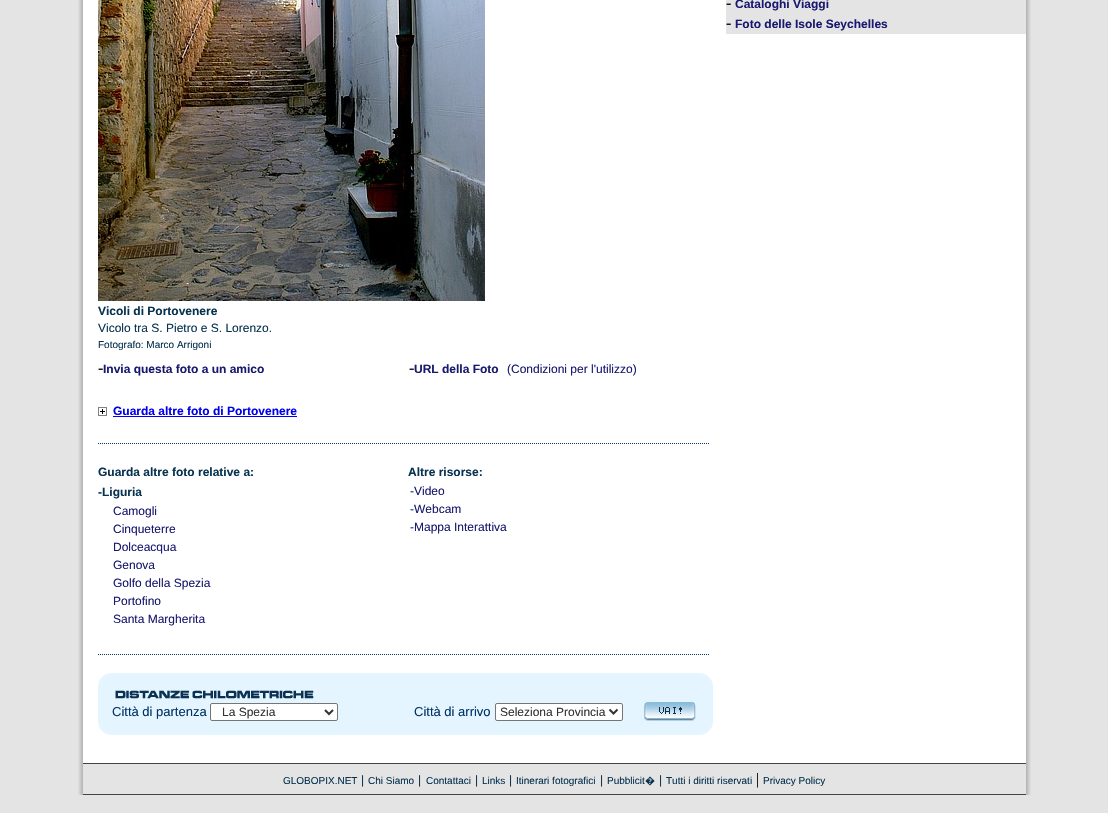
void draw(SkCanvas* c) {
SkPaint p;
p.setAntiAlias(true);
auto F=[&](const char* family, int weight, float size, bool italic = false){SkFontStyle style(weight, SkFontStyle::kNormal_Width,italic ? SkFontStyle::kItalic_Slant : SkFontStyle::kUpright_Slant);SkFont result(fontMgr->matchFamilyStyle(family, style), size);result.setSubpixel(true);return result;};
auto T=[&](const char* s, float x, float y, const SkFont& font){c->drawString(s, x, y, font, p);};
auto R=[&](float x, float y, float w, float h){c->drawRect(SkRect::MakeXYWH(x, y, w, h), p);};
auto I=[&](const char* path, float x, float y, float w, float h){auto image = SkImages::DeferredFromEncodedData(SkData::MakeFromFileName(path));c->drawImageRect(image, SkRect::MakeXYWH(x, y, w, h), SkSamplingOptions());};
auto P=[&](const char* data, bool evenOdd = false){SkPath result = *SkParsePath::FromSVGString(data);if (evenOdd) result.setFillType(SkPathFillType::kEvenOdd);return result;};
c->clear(0xffe4e4e4);
I("1.png",78,0,5,763);
p.setColor(0xffffffff);
R(83,0,943,763);
p.setColor(0xffe4e4e4);
R(726,0,300,34);
auto f1 = F("Liberation Serif",400,16);
p.setColor(0xff000000);
T("-",726,8,f1);
auto f2 = F("Liberation Sans",700,12);
p.setColor(0xff191970);
T("Cataloghi Viaggi",735,8,f2);
p.setColor(0xff000000);
T("-",726,28,f1);
p.setColor(0xff191970);
T("Foto delle Isole Seychelles",735,28,f2);
I("2.png",98,0,387,301);
p.setColor(0xff073350);
T("Vicoli di Portovenere",98,315,f2);
auto f3 = F("Liberation Sans",400,12);
T("Vicolo tra S. Pietro e S. Lorenzo.",98,332,f3);
auto f4 = F("Liberation Sans",400,10);
T("Fotografo: Marco Arrigoni",98,348,f4);
p.setColor(0xff000000);
T("-",98,373,f1);
p.setColor(0xff191970);
T("Invia questa foto a un amico",103,373,f2);
p.setColor(0xff000000);
T("-",409,373,f1);
p.setColor(0xff191970);
T("URL della Foto",414,373,f2);
T("(Condizioni per l'utilizzo)",507,373,f3);
I("3.png",98,407,9,9);
p.setColor(0xff0000ee);
T("Guarda altre foto di Portovenere",113,415,f2);
R(113,416,184,1);
I("4.png",98,443,611,1);
p.setColor(0xff073350);
T("Guarda altre foto relative a:",98,476,f2);
T("Altre risorse:",408,476,f2);
T("-Liguria",98,496,f2);
p.setColor(0xff191970);
T("Camogli",113,515,f3);
T("Cinqueterre",113,533,f3);
T("Dolceacqua",113,551,f3);
T("Genova",113,569,f3);
T("Golfo della Spezia",113,587,f3);
T("Portofino",113,605,f3);
T("Santa Margherita",113,623,f3);
p.setColor(0xff073350);
T("-",410,495,f3);
p.setColor(0xff191970);
T("Video",414,495,f3);
p.setColor(0xff073350);
T("-",410,513,f3);
p.setColor(0xff191970);
T("Webcam",414,513,f3);
p.setColor(0xff073350);
T("-",410,531,f3);
p.setColor(0xff191970);
T("Mappa Interattiva",414,531,f3);
I("4.png",98,654,611,1);
p.setColor(0xffe4f5ff);
R(98,673,615,62);
I("5.png",98,673,12,12);
I("6.png",701,673,12,12);
I("7.png",115,690,199,9);
auto f5 = F("Liberation Sans",400,13);
p.setColor(0xff003366);
T("Città di partenza",112,716,f5);
p.setColor(0xffffffff);
c->drawRoundRect(SkRect::MakeXYWH(210.5,703.5,127,17),1.5,1.5,p);
p.setStroke(true);
p.setStrokeWidth(1);
p.setColor(0xff767676);
c->drawRoundRect(SkRect::MakeXYWH(210.5,703.5,127,17),1.5,1.5,p);
p.setStrokeWidth(2);
p.setColor(0xff333333);
c->drawPath(P("M325 710l4 4l4-4"),p);
p.setStroke(false);
T("La Spezia",222,716,f3);
p.setColor(0xff003366);
T("Città di arrivo",414,716,f5);
p.setColor(0xffffffff);
c->drawRoundRect(SkRect::MakeXYWH(495.5,703.5,127,17),1.5,1.5,p);
p.setStroke(true);
p.setStrokeWidth(1);
p.setColor(0xff767676);
c->drawRoundRect(SkRect::MakeXYWH(495.5,703.5,127,17),1.5,1.5,p);
p.setStrokeWidth(2);
p.setColor(0xff333333);
c->drawPath(P("M609.5 709.5l4 4l4-4"),p);
p.setStroke(false);
T("Seleziona Provincia",500,716,f3);
I("8.png",644,702,52,19);
I("9.png",98,723,12,12);
I("10.png",701,723,12,12);
I("11.png",1026,0,5,763);
I("12.png",78,763,5,32);
p.setColor(0xff444444);
R(83,763,943,1);
I("13.png",1026,763,5,32);
p.setColor(0xff073350);
T("GLOBOPIX.NET",283,784,f4);
T("|",361,784,f3);
T("Chi Siamo",368,784,f4);
T("|",418,784,f3);
T("Contattaci",426,784,f4);
T("|",475,784,f3);
T("Links",482,784,f4);
T("|",509,784,f3);
T("Itinerari fotografici",516,784,f4);
T("|",600,784,f3);
T("Pubblicit",607,784,f4);
auto f6 = F("Noto Sans",400,10);
T("�",645,784,f6);
T("|",659,784,f3);
T("Tutti i diritti riservati",666,784,f4);
p.setColor(0xff000000);
T("|",756,784,f1);
p.setColor(0xff073350);
T("Privacy Policy",763,784,f4);
p.setColor(0xff444444);
R(83,794,943,1);
}
